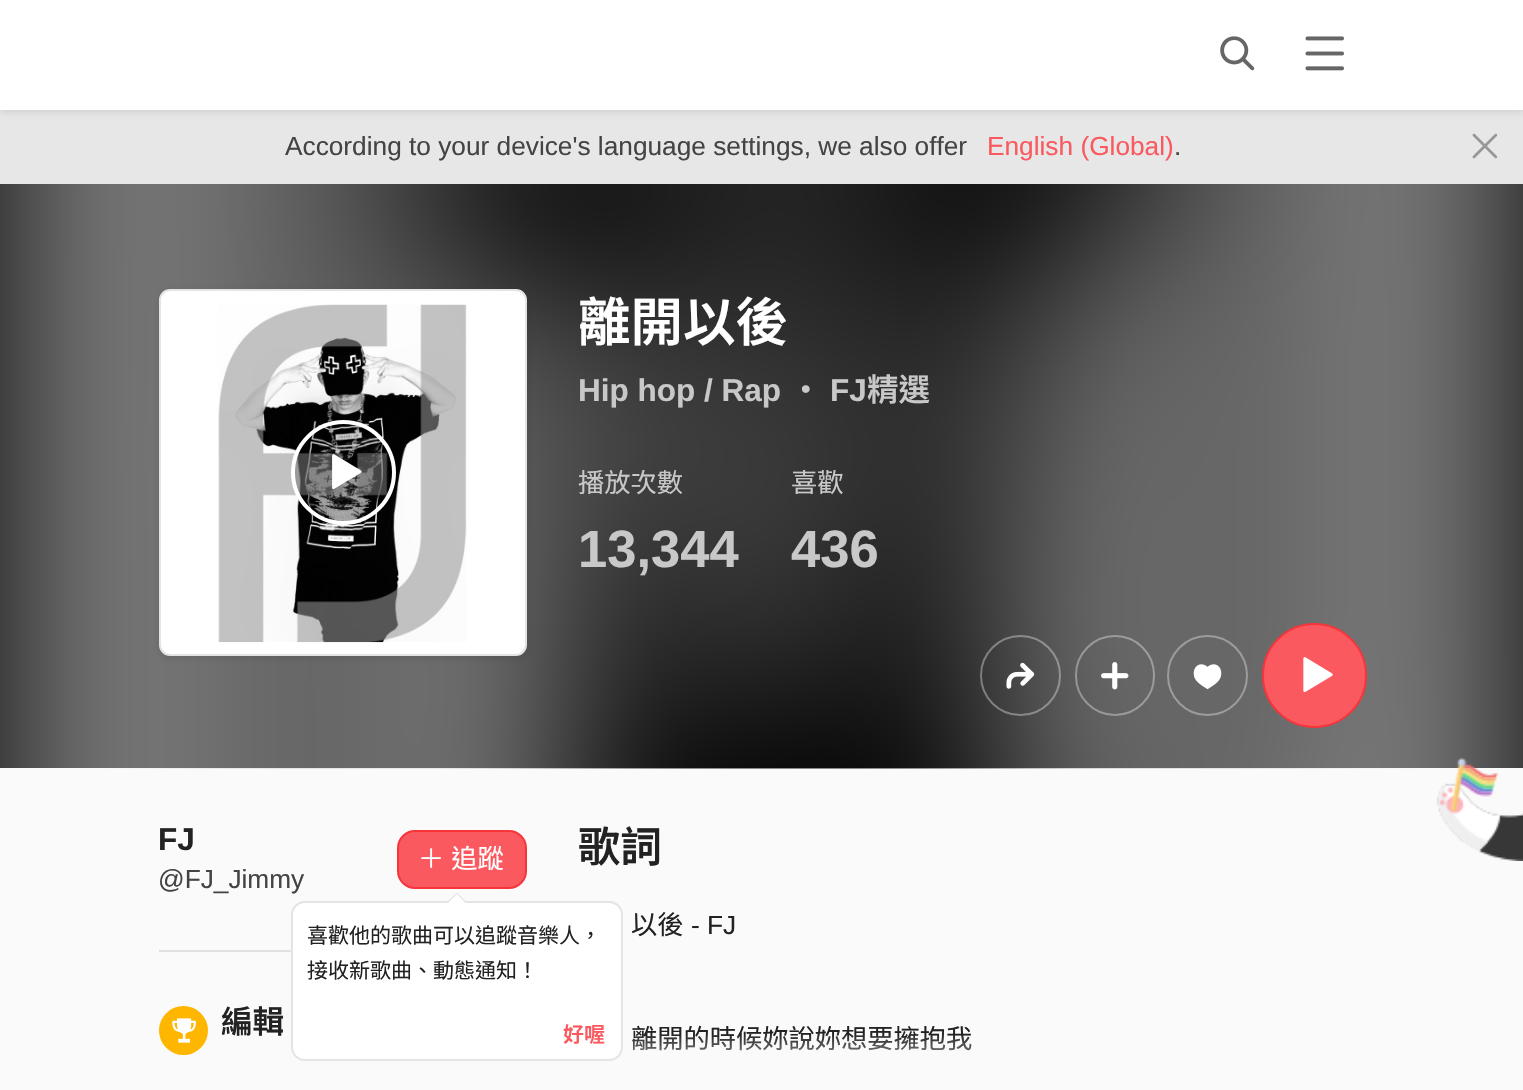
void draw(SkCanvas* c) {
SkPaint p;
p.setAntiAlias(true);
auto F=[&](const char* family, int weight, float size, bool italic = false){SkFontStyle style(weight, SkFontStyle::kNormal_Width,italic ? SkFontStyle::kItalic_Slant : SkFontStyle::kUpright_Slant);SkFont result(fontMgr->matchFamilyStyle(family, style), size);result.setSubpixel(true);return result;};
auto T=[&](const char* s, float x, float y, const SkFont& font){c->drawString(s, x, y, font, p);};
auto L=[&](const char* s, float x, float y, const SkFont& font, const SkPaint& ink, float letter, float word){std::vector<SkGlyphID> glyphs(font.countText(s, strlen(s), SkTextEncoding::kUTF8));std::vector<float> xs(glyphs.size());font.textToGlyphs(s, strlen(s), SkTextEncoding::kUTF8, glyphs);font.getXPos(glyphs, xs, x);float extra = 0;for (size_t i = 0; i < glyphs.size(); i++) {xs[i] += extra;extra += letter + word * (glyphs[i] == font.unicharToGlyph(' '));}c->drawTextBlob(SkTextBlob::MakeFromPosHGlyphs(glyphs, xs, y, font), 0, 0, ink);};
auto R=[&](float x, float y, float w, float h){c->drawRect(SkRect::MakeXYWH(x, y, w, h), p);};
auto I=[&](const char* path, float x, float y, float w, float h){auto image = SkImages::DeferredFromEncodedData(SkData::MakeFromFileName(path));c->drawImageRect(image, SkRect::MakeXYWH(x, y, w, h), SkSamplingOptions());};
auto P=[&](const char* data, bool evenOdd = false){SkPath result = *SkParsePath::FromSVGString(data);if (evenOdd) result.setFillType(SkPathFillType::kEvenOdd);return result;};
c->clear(0xfffafafa);
p.setColor(0xffe7e7e7);
R(0,110,1523,74);
auto f1 = F("Liberation Sans",400,26.25);
p.setColor(0xff444444);
T("According to your device's language settings, we also offer",285,155,f1);
p.setColor(0xfff9595f);
T("English (Global)",987,155,f1);
p.setColor(0xff444444);
T(".",1174,155,f1);
I("1.png",1472,133,26,26);
p.setColor(0x1a000000);
p.setMaskFilter(SkMaskFilter::MakeBlur(kNormal_SkBlurStyle, 3.5));
c->drawRect(SkRect::MakeXYWH(0,2,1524,110),p);
p.setMaskFilter(nullptr);
p.setColor(0xffffffff);
R(0,0,1523,110);
I("2.png",1220,36,35,35);
I("3.png",1305,36,39,35);
p.setColor(0xff000000);
R(0,184,1523,584);
I("4.png",0,184,1523,585);
p.setColor(0x1a000000);
p.setMaskFilter(SkMaskFilter::MakeBlur(kNormal_SkBlurStyle, 3.5));
c->drawRoundRect(SkRect::MakeXYWH(159,291,368,367),11,11,p);
p.setMaskFilter(nullptr);
p.setColor(0xffffffff);
c->drawRoundRect(SkRect::MakeXYWH(160,290,366,365),10,10,p);
p.setStroke(true);
p.setStrokeWidth(2);
p.setColor(0xffe4e4e4);
c->drawRoundRect(SkRect::MakeXYWH(160,290,366,365),10,10,p);
I("5.png",218,304,249,339);
p.setStroke(false);
p.setColor(0x33000000);
c->drawCircle(343.5,472.5,50.5,p);
p.setStroke(true);
p.setStrokeWidth(4);
p.setColor(0xffffffff);
c->drawCircle(343.5,472.5,50.5,p);
I("6.png",332,454,30,36);
auto f2 = F("Noto Sans TC",600,52.5);
p.setStroke(false);
T("離開以後",578,341,f2);
auto f3 = F("Liberation Sans",700,31.5);
p.setColor(0xffc8c8c8);
T("Hip hop / Rap",578,401,f3);
auto f4 = F("Noto Sans TC",600,31.5);
T("・",790,401,f4);
T("FJ",830,401,f3);
T("精選",867,401,f4);
auto f5 = F("Noto Sans TC",400,26.25);
T("播放次數",578,492,f5);
auto f6 = F("Liberation Sans",700,52.5);
T("13,344",578,567,f6);
T("喜歡",791,492,f5);
T("436",791,567,f6);
p.setStroke(true);
p.setStrokeWidth(2);
p.setColor(0x59ffffff);
c->drawCircle(1020.5,675.5,39.5,p);
I("7.png",1006,662,29,27);
c->drawRoundRect(SkRect::MakeXYWH(1076,636,78,79),39,39,p);
I("8.png",1101,662,28,28);
p.setColor(0xff9c9c9c);
c->drawCircle(1207.5,675.5,39.5,p);
I("9.png",1193,664,29,26);
p.setStroke(false);
p.setColor(0xfff9595f);
c->drawCircle(1314.5,675.5,51.5,p);
p.setStroke(true);
p.setColor(0xfff8343b);
c->drawCircle(1314.5,675.5,51.5,p);
I("10.png",1303,657,30,36);
I("11.png",1437,758,86,103);
p.setStroke(false);
p.setColor(0xff222222);
T("FJ",158,850,f3);
p.setColor(0xff444444);
T("@FJ_Jimmy",158,888,f1);
p.setColor(0xfff9595f);
c->drawRoundRect(SkRect::MakeXYWH(398,831,128,57),17,17,p);
p.setStroke(true);
p.setColor(0xfff8343b);
c->drawRoundRect(SkRect::MakeXYWH(398,831,128,57),17,17,p);
p.setStroke(false);
p.setColor(0xffffffff);
L("＋ 追蹤",418,868,f5,p,0,1);
c->drawRoundRect(SkRect::MakeXYWH(292,902,330,158),13,13,p);
p.setStroke(true);
p.setColor(0xffe4e4e4);
c->drawRoundRect(SkRect::MakeXYWH(292,902,330,158),13,13,p);
p.setStroke(false);
c->drawPath(P("M467 903h-21l11-10.5z"),p);
p.setColor(0xffffffff);
c->drawPath(P("M465.5 903h-17.5l9-9z"),p);
auto f7 = F("Noto Sans TC",400,21);
p.setColor(0xff222222);
T("喜歡他的歌曲可以追蹤音樂人，",307,943,f7);
T("接收新歌曲、動態通知！",307,978,f7);
auto f8 = F("Noto Sans TC",600,21);
p.setColor(0xfff9595f);
T("好喔",563,1042,f8);
p.setColor(0xffe1e1e1);
R(159,950,132,2);
p.setColor(0xffffb600);
c->drawCircle(183.5,1030.5,24.5,p);
I("12.png",172,1018,24,25);
p.setColor(0xff222222);
T("編輯",221,1033,f4);
auto f9 = F("Noto Sans TC",600,42);
T("歌詞",578,862,f9);
T("以後",631,934,f5);
T("- FJ",691,934,f1);
T("離開的時候妳說妳想要擁抱我",631,1048,f5);
{
const SkColor colors[] = {0x00fafafa,0xfffafafa};
const float stops[] = {0,.5};
const SkPoint ends[] = {{973,1034}, {973,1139}};
p.setShader(SkGradientShader::MakeLinear(ends, colors, stops, 2, SkTileMode::kClamp));
p.setAlpha(255);
}
R(632,1035,340,16);
}
